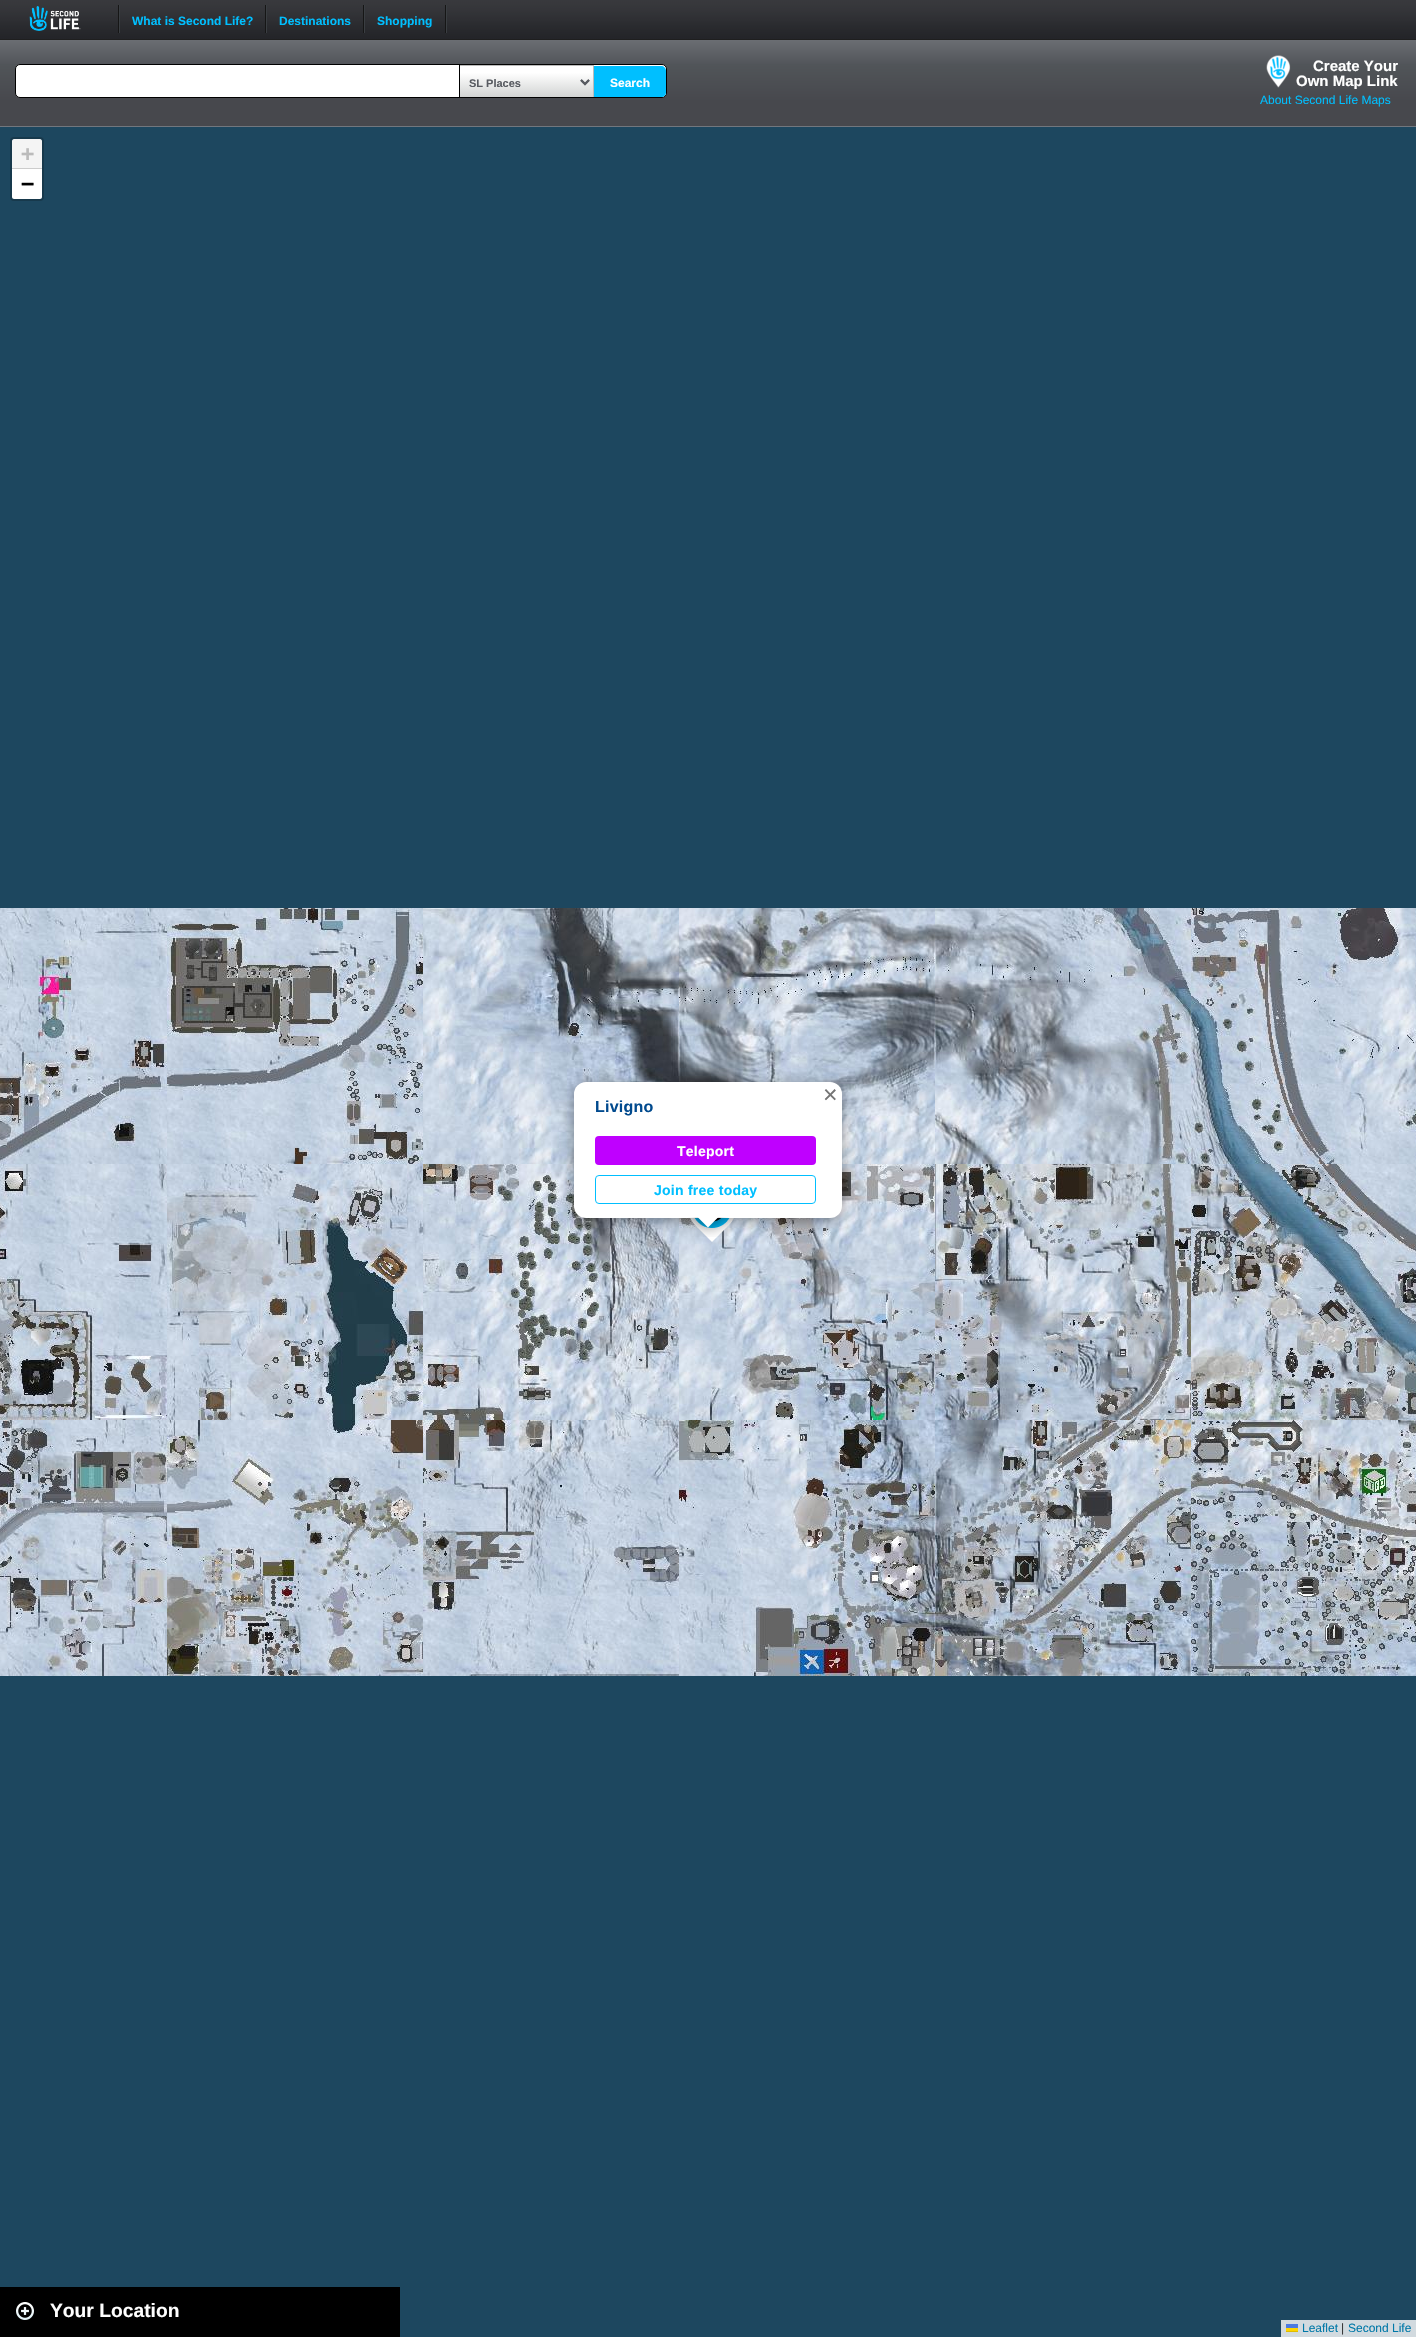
void draw(SkCanvas* c) {
SkPaint p;
p.setAntiAlias(true);
auto F=[&](const char* family, int weight, float size, bool italic = false){SkFontStyle style(weight, SkFontStyle::kNormal_Width,italic ? SkFontStyle::kItalic_Slant : SkFontStyle::kUpright_Slant);SkFont result(fontMgr->matchFamilyStyle(family, style), size);result.setSubpixel(true);return result;};
auto T=[&](const char* s, float x, float y, const SkFont& font){c->drawString(s, x, y, font, p);};
auto L=[&](const char* s, float x, float y, const SkFont& font, const SkPaint& ink, float letter, float word){std::vector<SkGlyphID> glyphs(font.countText(s, strlen(s), SkTextEncoding::kUTF8));std::vector<float> xs(glyphs.size());font.textToGlyphs(s, strlen(s), SkTextEncoding::kUTF8, glyphs);font.getXPos(glyphs, xs, x);float extra = 0;for (size_t i = 0; i < glyphs.size(); i++) {xs[i] += extra;extra += letter + word * (glyphs[i] == font.unicharToGlyph(' '));}c->drawTextBlob(SkTextBlob::MakeFromPosHGlyphs(glyphs, xs, y, font), 0, 0, ink);};
auto R=[&](float x, float y, float w, float h){c->drawRect(SkRect::MakeXYWH(x, y, w, h), p);};
auto Q=[&](float x, float y, float w, float h, float radius){c->drawRoundRect(SkRect::MakeXYWH(x, y, w, h), radius, radius, p);};
auto I=[&](const char* path, float x, float y, float w, float h){auto image = SkImages::DeferredFromEncodedData(SkData::MakeFromFileName(path));c->drawImageRect(image, SkRect::MakeXYWH(x, y, w, h), SkSamplingOptions());};
auto P=[&](const char* data, bool evenOdd = false){SkPath result = *SkParsePath::FromSVGString(data);if (evenOdd) result.setFillType(SkPathFillType::kEvenOdd);return result;};
c->clear(0xff1d475f);
I("1.png",0,0,1416,40);
I("2.png",29,6,52,25);
p.setColor(0xff3a3e42);
R(119,5,1,28);
p.setColor(0xff161616);
R(118,5,1,28);
auto f1 = F("Liberation Sans",700,12);
p.setColor(0xff00bfff);
T("What is Second Life?",132,25,f1);
p.setColor(0xff3a3e42);
R(266,5,1,28);
p.setColor(0xff161616);
R(265,5,1,28);
p.setColor(0xff00bfff);
T("Destinations",279,25,f1);
p.setColor(0xff3a3e42);
R(364,5,1,28);
p.setColor(0xff161616);
R(363,5,1,28);
p.setColor(0xff00bfff);
T("Shopping",377,25,f1);
p.setColor(0xff3a3e42);
R(446,5,1,28);
p.setColor(0xff161616);
R(445,5,1,28);
{
const SkColor colors[] = {0xff47484d,0xff515559,0xff6b6e73};
const float stops[] = {.29,.71,1};
const SkPoint ends[] = {{0,126}, {0,40}};
p.setShader(SkGradientShader::MakeLinear(ends, colors, stops, 3, SkTileMode::kClamp));
p.setAlpha(255);
}
R(0,40,1416,86);
p.setShader(nullptr);
p.setColor(0xff72777e);
R(0,126,1416,1);
p.setColor(0xffffffff);
c->drawRoundRect(SkRect::MakeXYWH(15.5,64.5,651,33),4.5,4.5,p);
p.setStroke(true);
p.setStrokeWidth(1);
p.setColor(0xff000000);
c->drawRoundRect(SkRect::MakeXYWH(15.5,64.5,651,33),4.5,4.5,p);
I("3.png",460,66,133,31);
p.setStroke(false);
p.setColor(0xffbbbbbb);
R(459,65,135,1);
R(593,65,1,32);
p.setColor(0xff000000);
R(459,65,1,32);
p.setStroke(true);
p.setStrokeWidth(2);
p.setColor(0xff595c62);
c->drawPath(P("M581 80l4 4l4-4"),p);
auto f2 = F("Liberation Sans",700,11);
p.setStroke(false);
T("SL Places",469,87,f2);
c->save();
c->clipPath(P("M20 65h642c2 0 4 2 4 4v24c0 2-2 4-4 4h-642c-2 0-4-2-4-4v-24c0-2 2-4 4-4z"),true);
p.setColor(0xff00bfff);
c->drawPath(P("M594 66h67c3 0 5 2 5 5v24c0 3-2 5-5 5h-67z"),p);
c->restore();
p.setColor(0xffffffff);
T("Search",610,87,f1);
I("4.png",1266,55,25,33);
auto f3 = F("Liberation Sans",700,15);
T("Create Your",1313,71,f3);
T("Own Map Link",1296,86,f3);
auto f4 = F("Liberation Sans",400,12);
p.setColor(0xff00bfff);
T("About Second Life Maps",1260,104,f4);
p.setStroke(true);
p.setColor(0xff17394c);
c->drawRoundRect(SkRect::MakeXYWH(11,138,32,62),3,3,p);
p.setStroke(false);
p.setColor(0xfff4f4f4);
c->drawPath(P("M14 139h26c1 0 2 1 2 2v28h-30v-28c0-1 1-2 2-2z"),p);
p.setColor(0xffcccccc);
R(12,168,30,1);
auto f5 = F("DejaVu Sans Mono",700,22);
p.setColor(0xffbbbbbb);
T("+",21,161,f5);
p.setColor(0xffffffff);
c->drawPath(P("M12 169h30v28c0 1-1 2-2 2h-26c-1 0-2-1-2-2z"),p);
p.setColor(0xff000000);
T("−",21,191,f5);
p.setColor(0xffd2dadf);
R(1281,2320,135,17);
p.setColor(0xff0078a8);
T("Leaflet",1302,2332,f4);
p.setColor(0xff4c7be1);
R(1286,2324,12,4);
p.setColor(0xffffd500);
R(1286,2328,12,3);
p.setColor(0xffe0bc00);
R(1286,2331,12,1);
p.setColor(0xff333333);
T("|",1341,2332,f4);
p.setColor(0xff0078a8);
T("Second Life",1348,2332,f4);
I("5.png",0,908,167,256);
I("6.png",167,908,256,256);
I("7.png",423,908,256,256);
I("8.png",679,908,256,256);
I("9.png",935,908,256,256);
I("10.png",1191,908,225,256);
I("11.png",0,1164,167,256);
I("12.png",167,1164,256,256);
I("13.png",423,1164,256,256);
I("14.png",679,1164,256,256);
I("15.png",935,1164,256,256);
I("16.png",1191,1164,225,256);
I("17.png",0,1420,167,256);
I("18.png",167,1420,256,256);
I("19.png",423,1420,256,256);
I("20.png",679,1420,256,256);
I("21.png",935,1420,256,256);
I("22.png",1191,1420,225,256);
I("23.png",690,1218,44,24);
p.setColor(0x66000000);
p.setMaskFilter(SkMaskFilter::MakeBlur(kNormal_SkBlurStyle, 7));
c->drawRoundRect(SkRect::MakeXYWH(574,1085,268,136),12,12,p);
p.setMaskFilter(nullptr);
p.setColor(0xffffffff);
Q(574,1082,268,136,12);
auto f6 = F("Liberation Sans",400,25);
p.setColor(0xff757575);
T("×",823,1103,f6);
auto f7 = F("Liberation Sans",700,16);
p.setColor(0xff014a8e);
L("Livigno",595,1112,f7,p,.25,0);
p.setColor(0xffbf00ff);
Q(595,1136,221,29,4);
auto f8 = F("Liberation Sans",700,14);
p.setColor(0xffffffff);
L("Teleport",677,1156,f8,p,.25,0);
p.setStroke(true);
p.setStrokeWidth(1);
p.setColor(0xff00bfff);
c->drawRoundRect(SkRect::MakeXYWH(595.5,1175.5,220,28),3.5,3.5,p);
p.setStroke(false);
L("Join free today",654,1195,f8,p,.25,0);
c->save();
c->clipRect(SkRect::MakeXYWH(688,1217,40,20));
p.setColor(0x66000000);
p.setMaskFilter(SkMaskFilter::MakeBlur(kNormal_SkBlurStyle, 7));
c->drawRect(SkRect::MakeXYWH(700,1210,17,17),p);
p.setMaskFilter(nullptr);
c->restore();
c->save();
c->clipRect(SkRect::MakeXYWH(688,1217,40,20));
p.setColor(0xffffffff);
c->drawPath(P("M708 1203.5l12 12l-12 12l-12-12z"),p);
c->restore();
p.setColor(0xff000000);
R(0,2287,400,50);
I("24.png",16,2302,18,18);
auto f9 = F("Liberation Sans",700,19.25);
p.setColor(0xffffffff);
T("Your Location",50,2317,f9);
}
